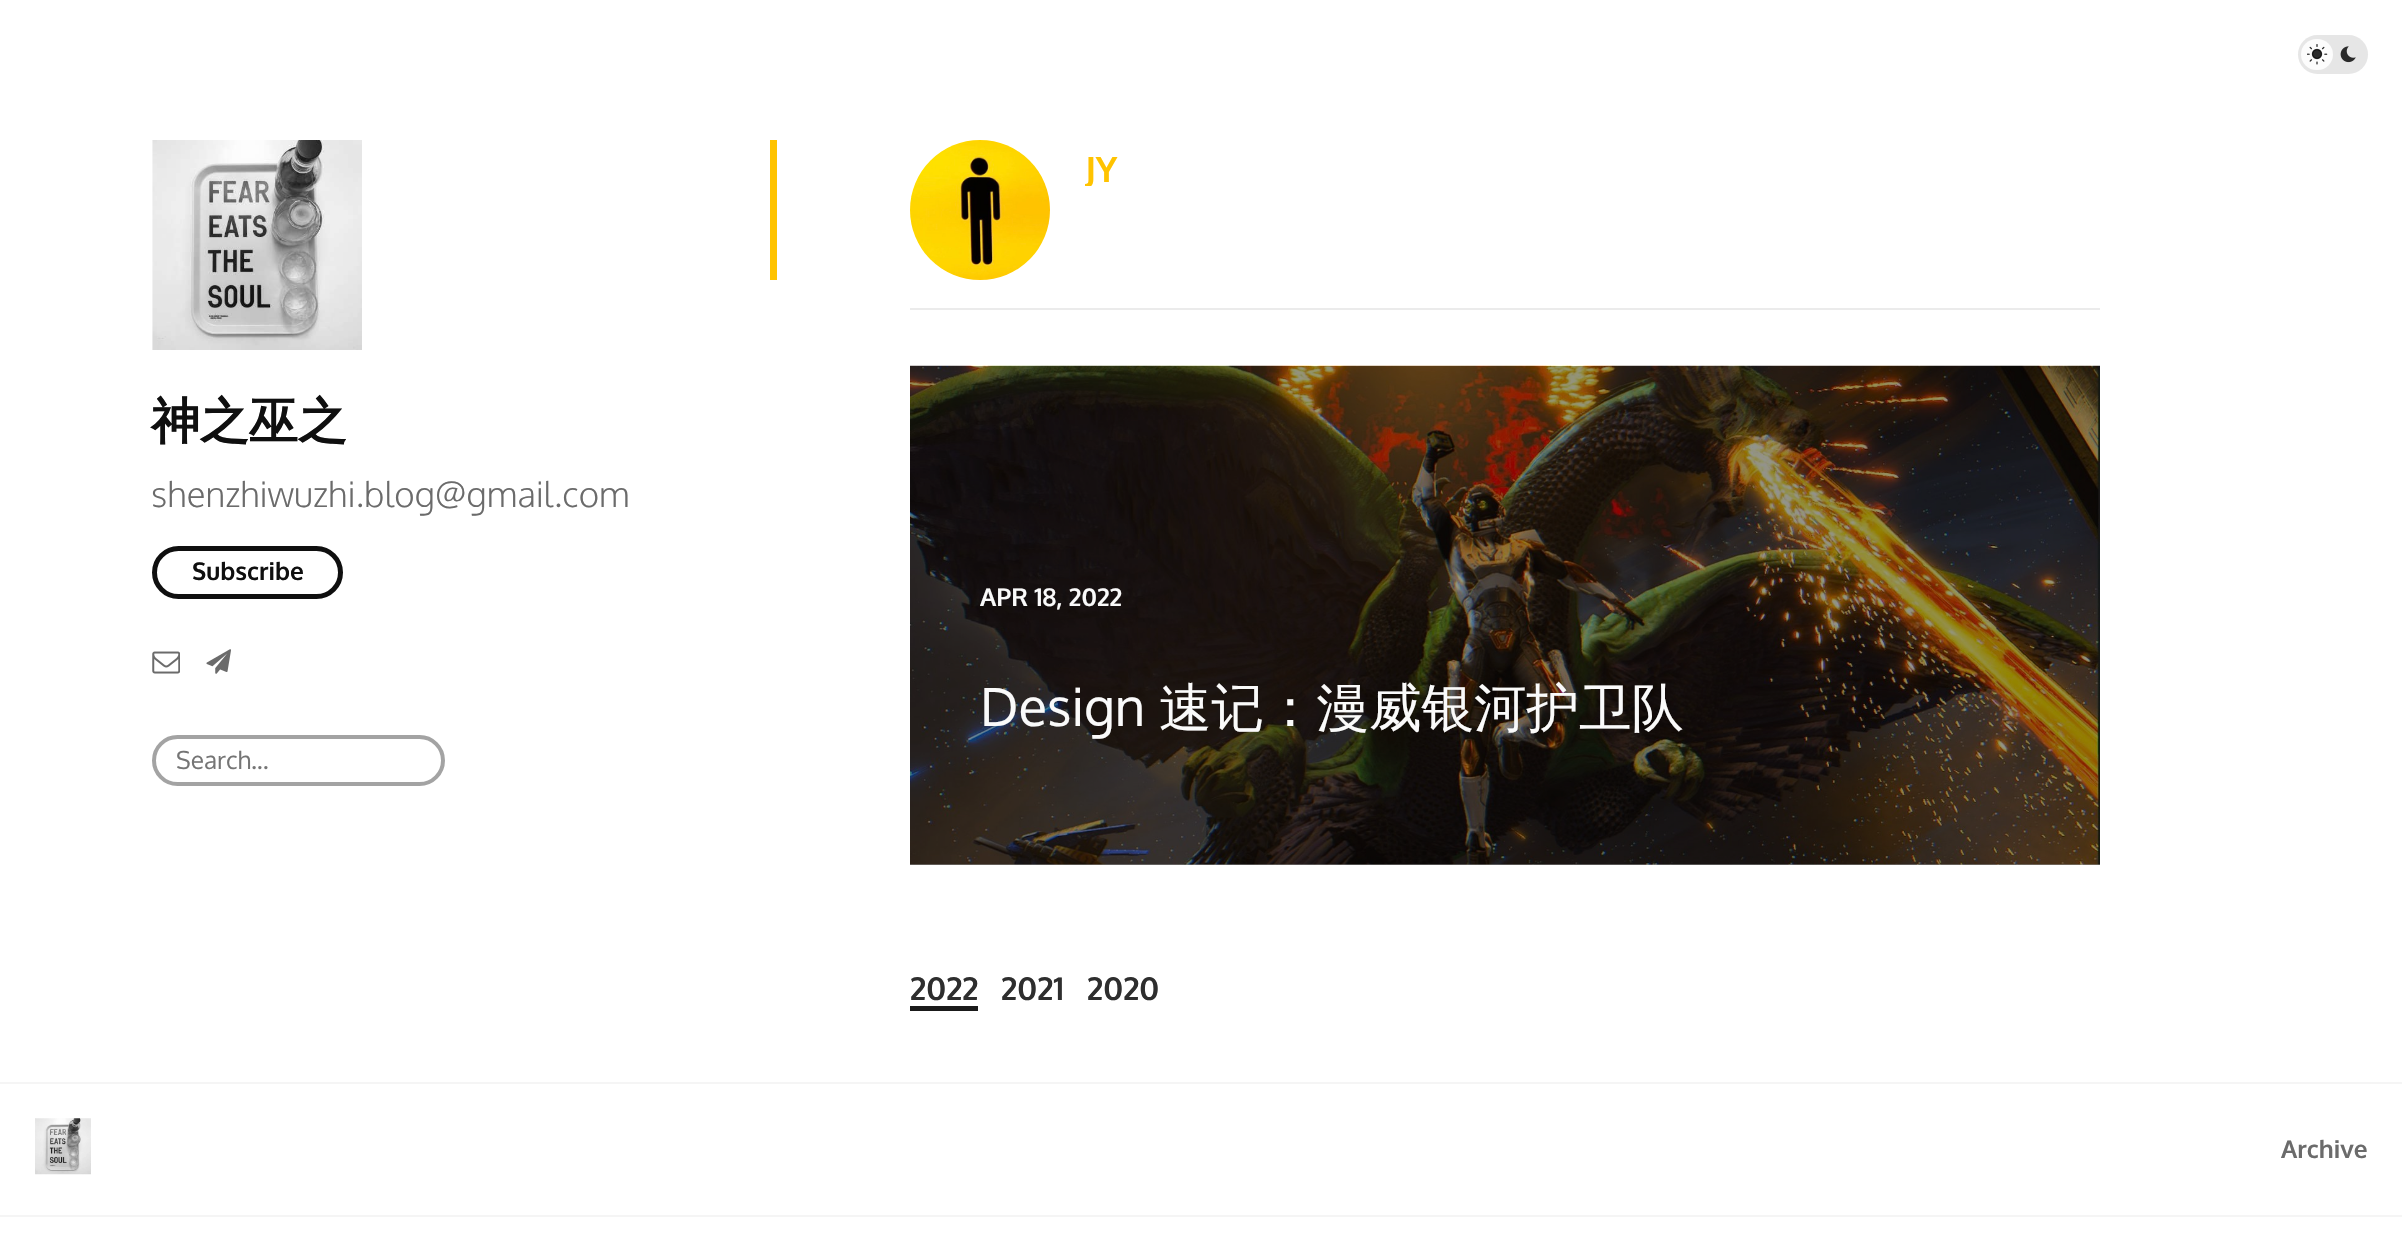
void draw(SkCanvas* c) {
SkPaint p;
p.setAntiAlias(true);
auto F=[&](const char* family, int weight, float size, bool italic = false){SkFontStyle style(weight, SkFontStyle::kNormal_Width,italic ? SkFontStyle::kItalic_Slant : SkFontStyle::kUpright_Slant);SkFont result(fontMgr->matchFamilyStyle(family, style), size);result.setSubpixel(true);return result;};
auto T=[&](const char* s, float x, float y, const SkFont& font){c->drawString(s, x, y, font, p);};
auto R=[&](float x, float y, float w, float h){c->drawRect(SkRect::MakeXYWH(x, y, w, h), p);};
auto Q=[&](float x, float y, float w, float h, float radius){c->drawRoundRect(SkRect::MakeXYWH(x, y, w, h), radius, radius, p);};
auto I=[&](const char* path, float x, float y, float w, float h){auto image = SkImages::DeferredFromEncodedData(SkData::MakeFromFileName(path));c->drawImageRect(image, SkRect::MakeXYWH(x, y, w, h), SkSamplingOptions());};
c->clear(0xffffffff);
p.setColor(0xffe6e6e6);
Q(2298,35,70,39,19.5);
p.setColor(0xfffcfcfc);
Q(2301,39,32,31,15.5);
I("1.png",2307,44,21,21);
I("2.png",2340,46,16,17);
I("3.png",152,140,210,210);
auto f1 = F("WenQuanYi Zen Hei",700,49);
p.setColor(0xff0f0f0f);
T("神之巫之",151,438,f1);
auto f2 = F("Oxygen",300,35);
p.setColor(0xff6b6b6b);
T("shenzhiwuzhi.blog@gmail.com",151,507,f2);
p.setStroke(true);
p.setStrokeWidth(5);
p.setColor(0xff0f0f0f);
c->drawRoundRect(SkRect::MakeXYWH(154.5,548.5,186,48),24,24,p);
auto f3 = F("Oxygen",700,24.5);
p.setStroke(false);
T("Subscribe",192,580,f3);
I("4.png",152,651,28,23);
I("5.png",206,649,25,25);
p.setStroke(true);
p.setStrokeWidth(4);
p.setColor(0xffa3a3a3);
c->drawRoundRect(SkRect::MakeXYWH(154,737,289,47),23.5,23.5,p);
auto f4 = F("Oxygen",400,24.5);
p.setStroke(false);
p.setColor(0xff757575);
T("Search...",176,769,f4);
p.setColor(0xffffc300);
R(770,140,7,140);
p.setColor(0xffebebeb);
R(910,308,1190,2);
I("6.png",910,140,140,140);
c->save();
c->clipRect(SkRect::MakeXYWH(1085,140,1015,46));
auto f5 = F("Oxygen",700,35);
p.setColor(0xffffc300);
T("JY",1085,182,f5);
c->restore();
p.setColor(0xff909090);
R(910,864,1190,1);
I("7.png",910,365,1190,500);
p.setColor(0xfffafafa);
T("APR 18, 2022",980,606,f3);
auto f6 = F("Oxygen",400,52.5);
T("Design",980,726,f6);
auto f7 = F("WenQuanYi Zen Hei",500,52.5);
T("速记：漫威银河护卫队",1159,726,f7);
auto f8 = F("Oxygen",700,31.5);
p.setColor(0xff2e2e2e);
T("2022",910,1000,f8);
p.setColor(0xff1a1a1a);
R(910,1006,68,5);
p.setColor(0xff2e2e2e);
T("2021",1001,1000,f8);
T("2020",1087,1000,f8);
p.setColor(0xfff5f5f5);
R(0,1082,2402,2);
I("8.png",35,1118,56,57);
p.setColor(0xff6b6b6b);
T("Archive",2281,1158,f3);
p.setColor(0xfff5f5f5);
R(0,1215,2402,2);
}
